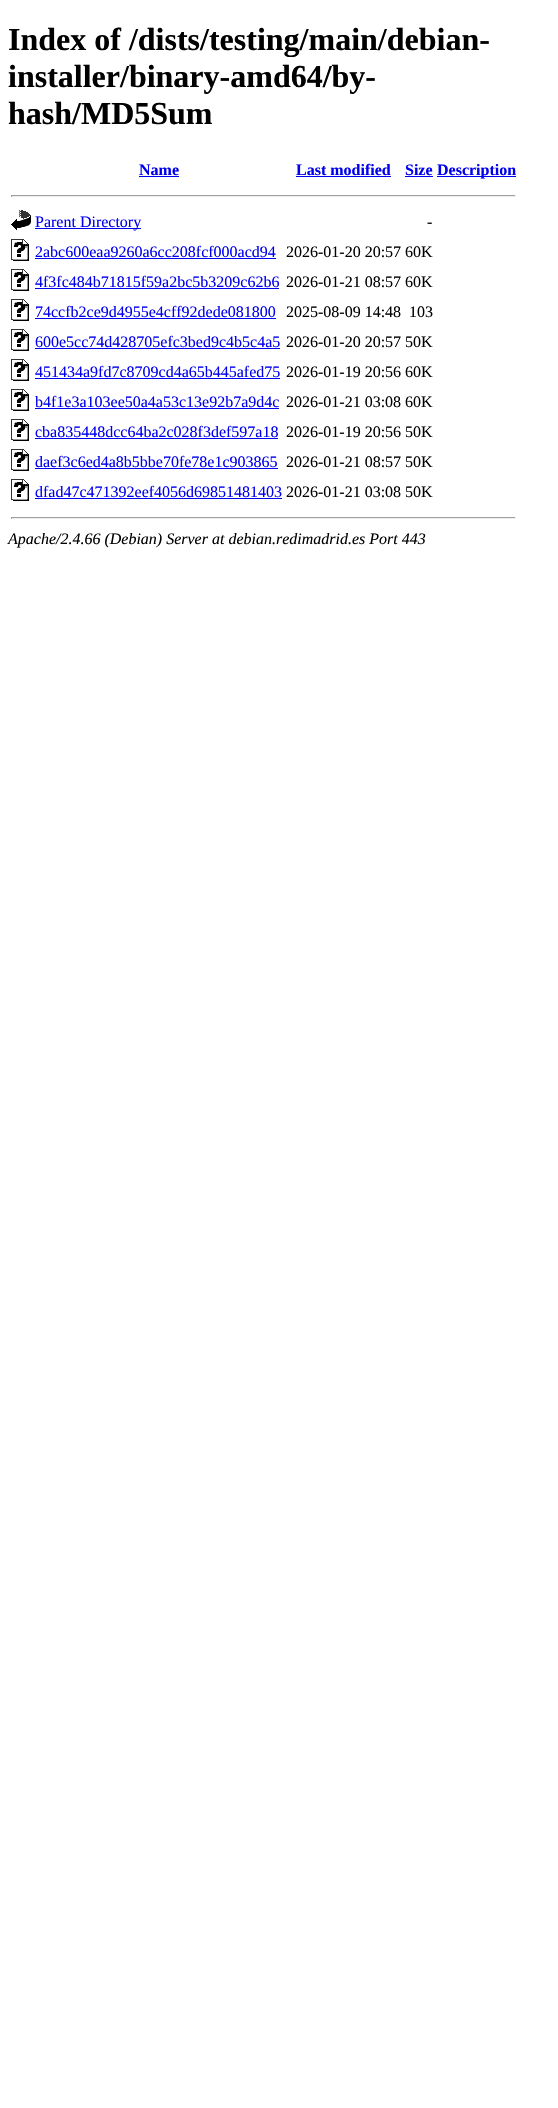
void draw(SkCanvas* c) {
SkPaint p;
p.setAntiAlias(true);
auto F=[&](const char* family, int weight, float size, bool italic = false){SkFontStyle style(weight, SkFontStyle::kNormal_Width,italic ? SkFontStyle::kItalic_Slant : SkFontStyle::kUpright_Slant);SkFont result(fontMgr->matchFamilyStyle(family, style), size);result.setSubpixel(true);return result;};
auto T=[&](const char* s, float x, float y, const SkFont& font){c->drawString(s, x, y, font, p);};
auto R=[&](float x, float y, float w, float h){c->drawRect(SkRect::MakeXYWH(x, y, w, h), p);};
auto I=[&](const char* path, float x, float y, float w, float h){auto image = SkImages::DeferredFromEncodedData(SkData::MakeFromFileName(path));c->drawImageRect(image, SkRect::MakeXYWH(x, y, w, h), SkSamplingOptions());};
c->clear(0xffffffff);
auto f1 = F("Liberation Serif",700,32);
p.setColor(0xff000000);
T("Index of /dists/testing/main/debian-",8,50,f1);
T("installer/binary-amd64/by-",8,87,f1);
T("hash/MD5Sum",8,124,f1);
auto f2 = F("Liberation Serif",700,16);
p.setColor(0xff0000ee);
T("Name",139,175,f2);
R(139,176,40,1);
T("Last modified",296,175,f2);
R(296,176,95,1);
T("Size",405,175,f2);
R(405,176,28,1);
R(437,176,79,1);
T("Description",437,175,f2);
p.setColor(0xff9f9f9f);
R(11,195,505,1);
p.setColor(0xffeeeeee);
R(515,195,1,2);
R(11,196,505,1);
p.setColor(0xff9f9f9f);
R(11,195,1,2);
I("1.png",11,210,20,20);
p.setColor(0xff0000ee);
R(35,228,106,1);
auto f3 = F("Liberation Serif",400,16);
T("Parent Directory",35,227,f3);
p.setColor(0xff000000);
T("-",427,227,f3);
I("2.png",11,239,18,22);
p.setColor(0xff0000ee);
T("2abc600eaa9260a6cc208fcf000acd94",35,257,f3);
R(35,258,241,1);
p.setColor(0xff000000);
T("2026-01-20 20:57 60K",286,257,f3);
I("2.png",11,269,18,22);
p.setColor(0xff0000ee);
T("4f3fc484b71815f59a2bc5b3209c62b6",35,287,f3);
R(35,288,244,1);
p.setColor(0xff000000);
T("2026-01-21 08:57 60K",286,287,f3);
I("2.png",11,299,18,22);
p.setColor(0xff0000ee);
T("74ccfb2ce9d4955e4cff92dede081800",35,317,f3);
R(35,318,241,1);
p.setColor(0xff000000);
T("2025-08-09 14:48",286,317,f3);
T("103",409,317,f3);
I("2.png",11,329,18,22);
p.setColor(0xff0000ee);
T("600e5cc74d428705efc3bed9c4b5c4a5",35,347,f3);
R(35,348,245,1);
p.setColor(0xff000000);
T("2026-01-20 20:57 50K",286,347,f3);
I("2.png",11,359,18,22);
p.setColor(0xff0000ee);
T("451434a9fd7c8709cd4a65b445afed75",35,377,f3);
R(35,378,245,1);
p.setColor(0xff000000);
T("2026-01-19 20:56 60K",286,377,f3);
I("2.png",11,389,18,22);
p.setColor(0xff0000ee);
T("b4f1e3a103ee50a4a53c13e92b7a9d4c",35,407,f3);
R(35,408,244,1);
p.setColor(0xff000000);
T("2026-01-21 03:08 60K",286,407,f3);
I("2.png",11,419,18,22);
p.setColor(0xff0000ee);
T("cba835448dcc64ba2c028f3def597a18",35,437,f3);
R(35,438,243,1);
p.setColor(0xff000000);
T("2026-01-19 20:56 50K",286,437,f3);
I("2.png",11,449,18,22);
p.setColor(0xff0000ee);
T("daef3c6ed4a8b5bbe70fe78e1c903865",35,467,f3);
R(35,468,243,1);
p.setColor(0xff000000);
T("2026-01-21 08:57 50K",286,467,f3);
I("2.png",11,479,18,22);
p.setColor(0xff0000ee);
T("dfad47c471392eef4056d69851481403",35,497,f3);
R(35,498,247,1);
p.setColor(0xff000000);
T("2026-01-21 03:08 50K",286,497,f3);
p.setColor(0xff9f9f9f);
R(11,517,505,1);
p.setColor(0xffeeeeee);
R(515,517,1,2);
R(11,518,505,1);
p.setColor(0xff9f9f9f);
R(11,517,1,2);
auto f4 = F("Liberation Serif",400,16,true);
p.setColor(0xff000000);
T("Apache/2.4.66 (Debian) Server at debian.redimadrid.es Port 443",8,544,f4);
}
